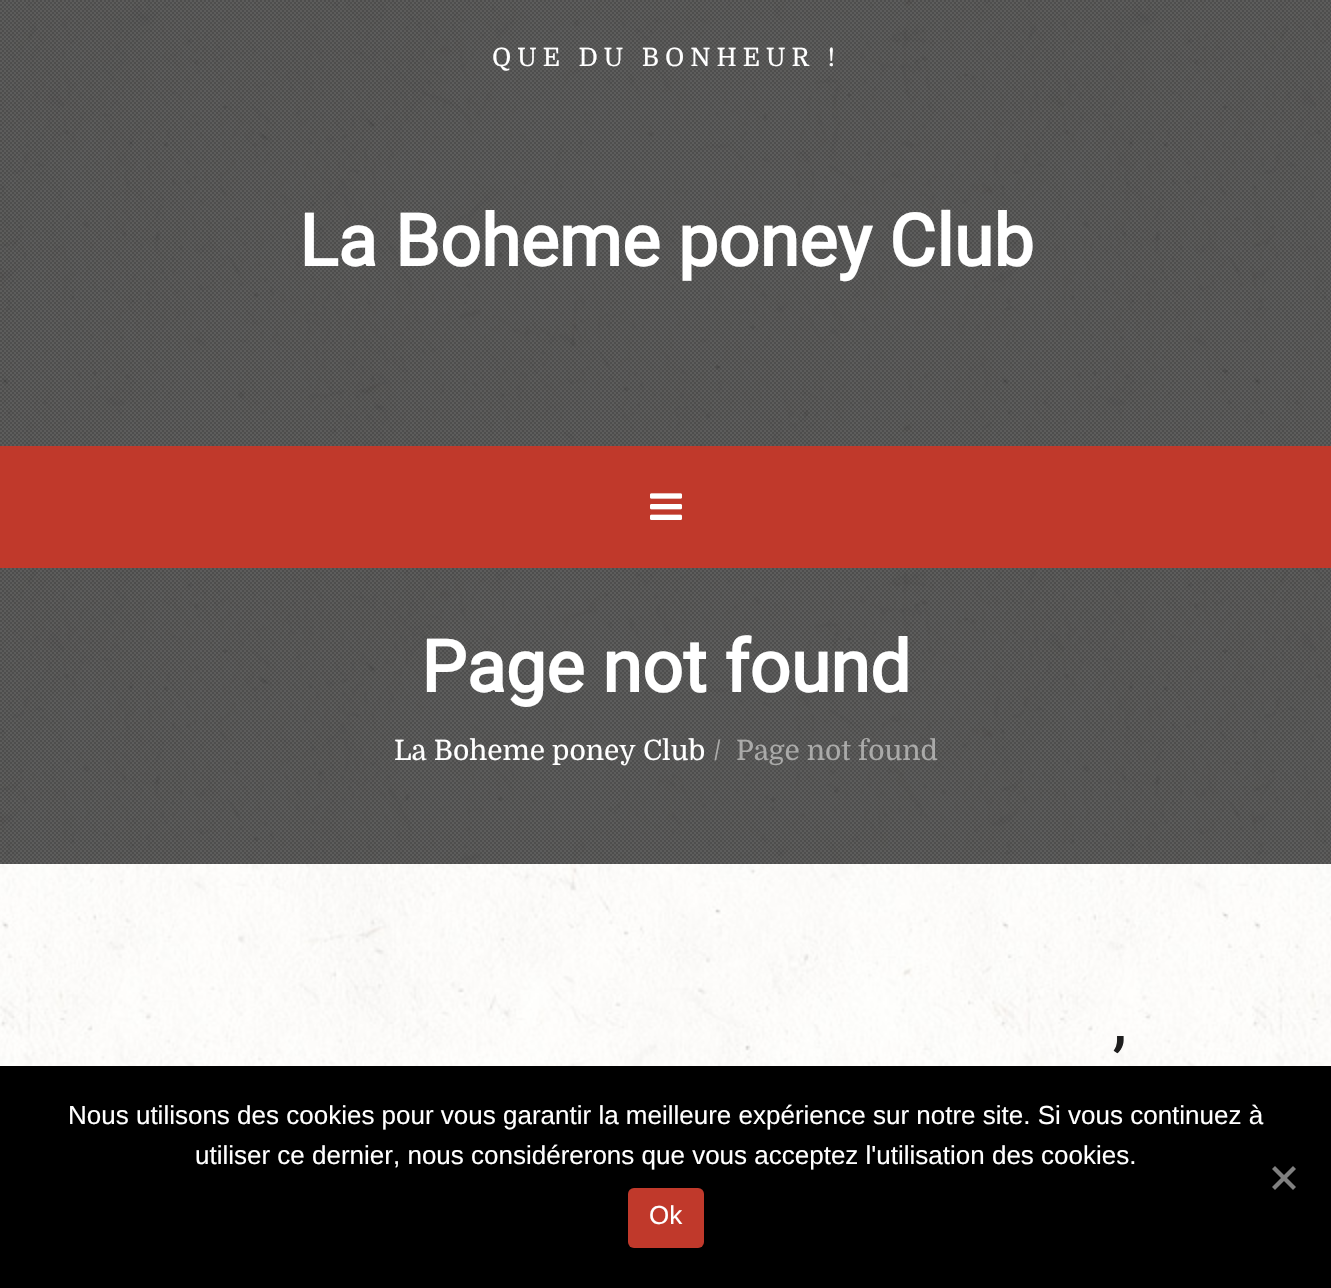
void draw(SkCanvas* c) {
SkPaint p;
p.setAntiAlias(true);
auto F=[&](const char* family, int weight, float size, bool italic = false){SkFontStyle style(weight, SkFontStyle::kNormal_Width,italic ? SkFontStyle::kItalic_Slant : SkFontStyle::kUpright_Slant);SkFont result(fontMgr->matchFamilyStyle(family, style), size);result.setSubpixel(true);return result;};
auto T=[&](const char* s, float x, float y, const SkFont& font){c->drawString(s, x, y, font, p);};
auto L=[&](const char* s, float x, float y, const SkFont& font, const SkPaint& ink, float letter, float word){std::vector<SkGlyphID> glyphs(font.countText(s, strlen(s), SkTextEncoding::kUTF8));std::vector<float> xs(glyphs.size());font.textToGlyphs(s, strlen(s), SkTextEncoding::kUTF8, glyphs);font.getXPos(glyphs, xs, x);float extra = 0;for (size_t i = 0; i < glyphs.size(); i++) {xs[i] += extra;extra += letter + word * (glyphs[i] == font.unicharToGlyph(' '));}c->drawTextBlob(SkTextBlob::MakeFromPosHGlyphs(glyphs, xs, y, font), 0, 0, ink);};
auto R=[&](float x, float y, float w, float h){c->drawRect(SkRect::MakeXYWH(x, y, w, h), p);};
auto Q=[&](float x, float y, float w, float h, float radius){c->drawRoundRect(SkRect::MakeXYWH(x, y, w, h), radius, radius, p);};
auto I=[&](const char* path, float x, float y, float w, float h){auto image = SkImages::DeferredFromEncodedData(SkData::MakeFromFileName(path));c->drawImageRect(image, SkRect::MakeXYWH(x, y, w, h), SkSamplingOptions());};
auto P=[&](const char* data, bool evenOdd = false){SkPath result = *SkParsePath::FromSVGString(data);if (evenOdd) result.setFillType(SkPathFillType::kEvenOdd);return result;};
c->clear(0xffffffff);
I("1.png",0,0,1331,1066);
p.setColor(0x8c000000);
R(0,0,1331,864);
I("2.png",0,0,1331,864);
auto f1 = F("Domine",400,25.25);
p.setColor(0xffffffff);
L("QUE DU BONHEUR !",492,66,f1,p,6,0);
auto f2 = F("Roboto",700,72);
T("La Boheme poney Club",299,266,f2);
p.setColor(0xffc0392b);
R(0,446,1331,122);
I("3.png",650,493,32,27);
p.setColor(0xffffffff);
T("Page not found",421,692,f2);
auto f3 = F("Domine",400,28);
T("La Boheme poney Club",394,760,f3);
p.setColor(0xffaaaaa9);
T("/",713,760,f3);
T("Page not found",736,760,f3);
auto f4 = F("Roboto",400,72);
p.setColor(0xff1e1e1e);
T("’",1112,1090,f4);
p.setColor(0xff000000);
R(0,1066,1331,222);
auto f5 = F("Liberation Sans",400,26);
p.setColor(0xffffffff);
T("Nous utilisons des cookies pour vous garantir la meilleure expérience sur notre site. Si vous continuez à",68,1124,f5);
T("utiliser ce dernier, nous considérerons que vous acceptez l'utilisation des cookies.",195,1164,f5);
p.setColor(0xff808080);
c->drawPath(P("M1293 1166l3 3l-21 21l-3-3z"),p);
c->drawPath(P("M1272 1169l3-3l21 21l-3 3z"),p);
p.setColor(0xffc0392b);
Q(628,1188,76,60,6);
p.setColor(0xffffffff);
T("Ok",649,1224,f5);
}
